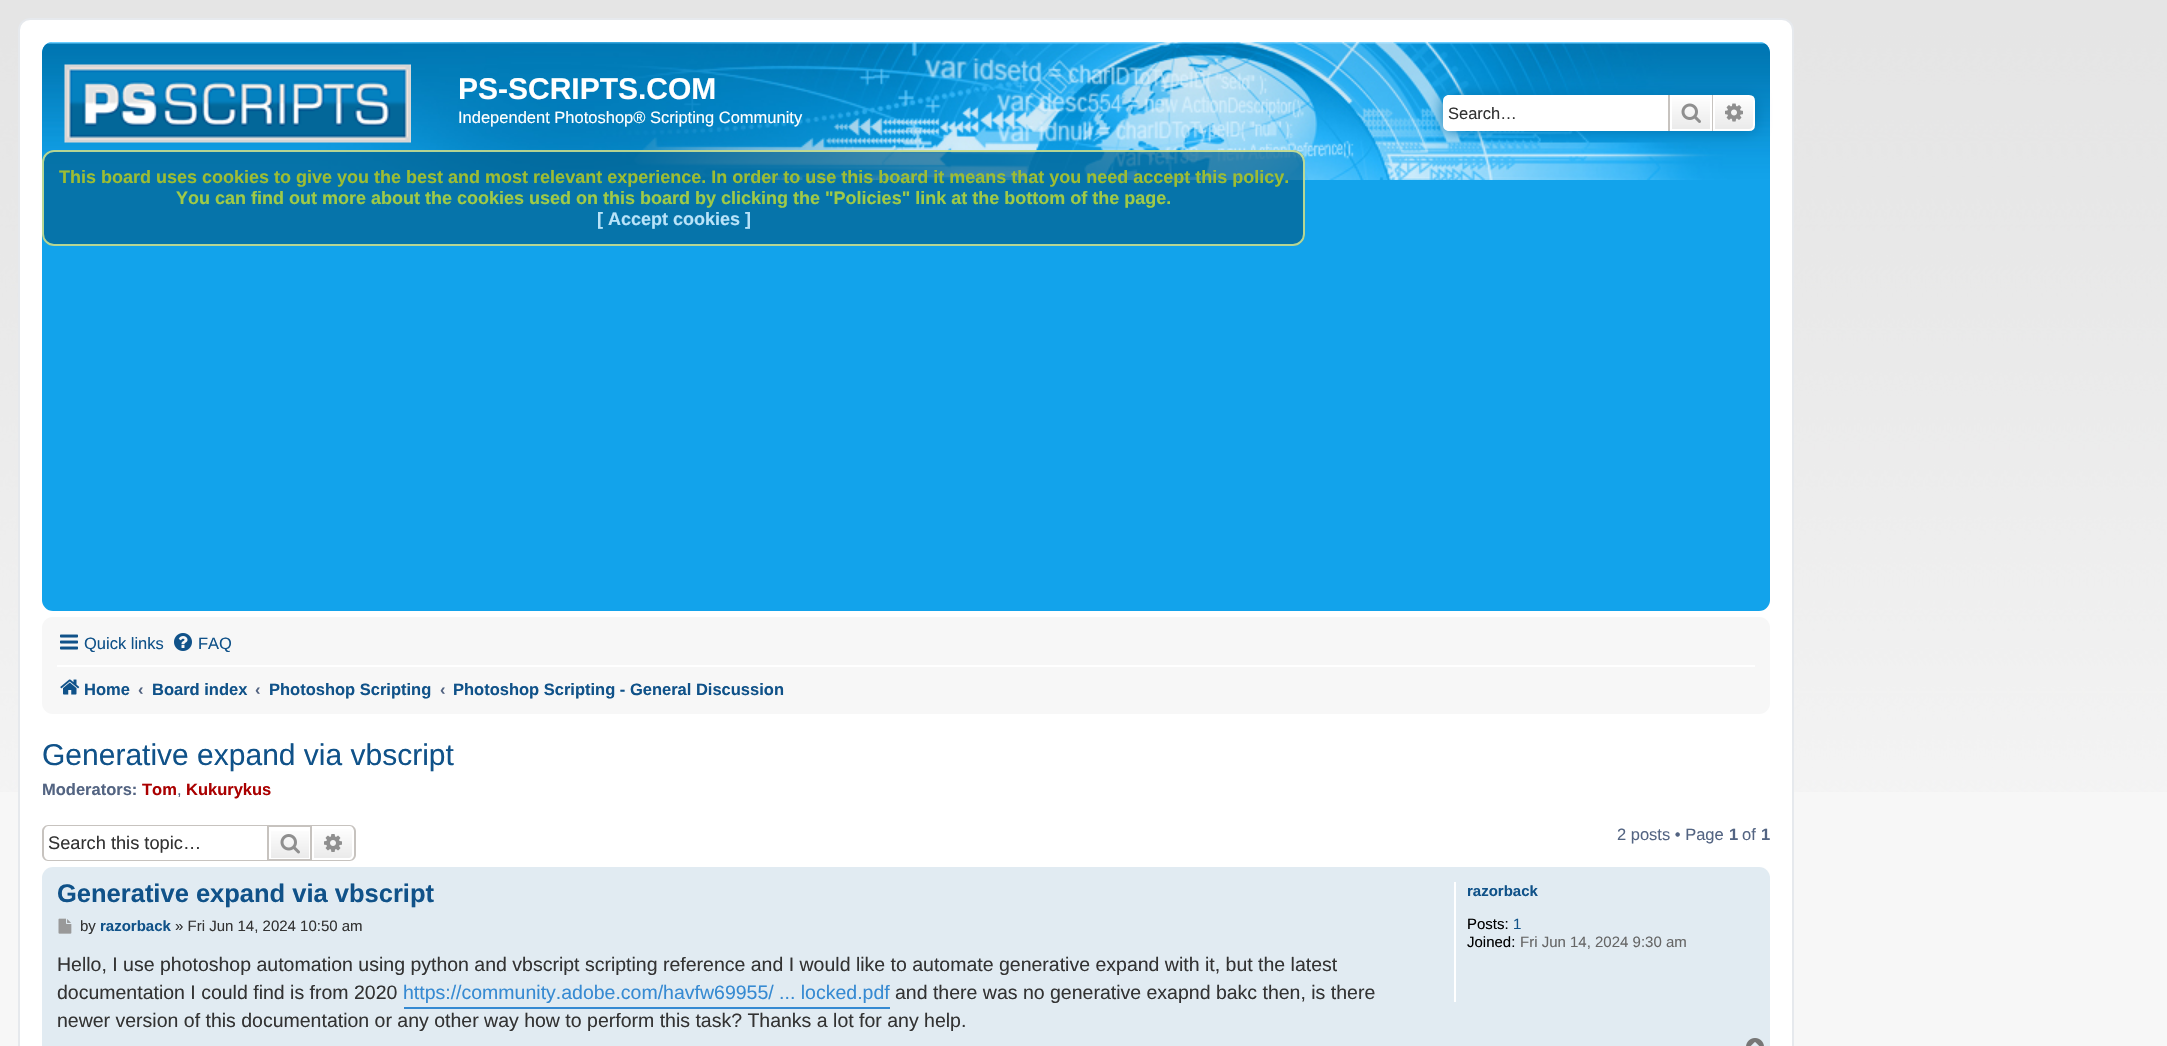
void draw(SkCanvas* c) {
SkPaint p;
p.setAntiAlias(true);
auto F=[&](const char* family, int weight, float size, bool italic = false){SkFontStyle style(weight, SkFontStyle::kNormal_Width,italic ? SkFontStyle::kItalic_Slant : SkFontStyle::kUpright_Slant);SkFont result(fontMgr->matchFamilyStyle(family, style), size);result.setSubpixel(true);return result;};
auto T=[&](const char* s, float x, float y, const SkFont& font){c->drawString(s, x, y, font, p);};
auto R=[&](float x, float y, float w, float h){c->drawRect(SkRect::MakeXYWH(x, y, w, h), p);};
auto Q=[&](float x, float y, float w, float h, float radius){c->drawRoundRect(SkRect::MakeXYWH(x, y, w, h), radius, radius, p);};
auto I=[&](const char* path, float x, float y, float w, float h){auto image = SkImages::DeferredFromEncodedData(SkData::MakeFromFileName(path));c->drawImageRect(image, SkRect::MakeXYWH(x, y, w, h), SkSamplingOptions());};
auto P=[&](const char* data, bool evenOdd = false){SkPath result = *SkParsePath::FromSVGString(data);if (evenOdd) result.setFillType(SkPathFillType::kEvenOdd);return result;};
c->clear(0xfff7f7f7);
I("1.png",0,0,2167,792);
p.setColor(0xffffffff);
c->drawRoundRect(SkRect::MakeXYWH(19,19,1774,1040),11,11,p);
p.setStroke(true);
p.setStrokeWidth(2);
p.setColor(0xffe6e9ed);
c->drawRoundRect(SkRect::MakeXYWH(19,19,1774,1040),11,11,p);
p.setStroke(false);
p.setColor(0xff12a3eb);
Q(42,42,1728,569,11);
I("2.png",42,42,1728,138);
I("3.png",64,64,347,79);
auto f1 = F("Liberation Sans",700,30);
p.setColor(0xffffffff);
T("PS-SCRIPTS.COM",458,99,f1);
auto f2 = F("Liberation Sans",400,16.5);
T("Independent Photoshop® Scripting Community",458,123,f2);
p.setColor(0xff0075b0);
p.setMaskFilter(SkMaskFilter::MakeBlur(kNormal_SkBlurStyle, 7.5));
c->drawRoundRect(SkRect::MakeXYWH(1443,95,312,36),6,6,p);
p.setMaskFilter(nullptr);
p.setColor(0xffffffff);
c->drawPath(P("M1449 95h219v36h-219c-3.5 0-6-2.5-6-6v-24c0-3.5 2.5-6 6-6z"),p);
p.setColor(0xff333333);
T("Search…",1448,119,f2);
{
const SkColor colors[] = {0xffffffff,0xffe9e9e9};
const float stops[] = {0,1};
const SkPoint ends[] = {{1691,95}, {1691,131}};
p.setShader(SkGradientShader::MakeLinear(ends, colors, stops, 2, SkTileMode::kClamp));
p.setAlpha(255);
}
R(1672,97,38,32);
p.setStroke(true);
p.setShader(nullptr);
p.setColor(0xffffffff);
c->drawRect(SkRect::MakeXYWH(1671,96,40,34),p);
p.setStroke(false);
p.setColor(0xffc7c3bf);
R(1712,95,1,36);
R(1668,95,2,36);
I("4.png",1681,103,20,20);
{
const SkColor colors[] = {0xffffffff,0xffe9e9e9};
const float stops[] = {0,1};
const SkPoint ends[] = {{1734,95}, {1734,131}};
p.setShader(SkGradientShader::MakeLinear(ends, colors, stops, 2, SkTileMode::kClamp));
p.setAlpha(255);
}
c->drawPath(P("M1714 96h35c3 0 5 2 5 5v24c0 3-2 5-5 5h-35z"),p);
p.setStroke(true);
p.setShader(nullptr);
p.setColor(0xffffffff);
c->drawPath(P("M1714 96h35c3 0 5 2 5 5v24c0 3-2 5-5 5h-35z"),p);
I("5.png",1725,103,18,19);
p.setStroke(false);
p.setColor(0xfff7f7f7);
Q(42,617,1728,97,11);
I("6.png",60,634,18,16);
p.setColor(0xff105289);
T("Quick links",84,649,f2);
I("7.png",174,633,18,18);
T("FAQ",198,649,f2);
p.setColor(0xffffffff);
R(57,665,1698,2);
I("8.png",60,679,20,16);
auto f3 = F("Liberation Sans",700,16.5);
p.setColor(0xff105289);
T("Home",84,695,f3);
p.setColor(0xff536482);
T("‹",138,695,f3);
p.setColor(0xff105289);
T("Board index",152,695,f3);
p.setColor(0xff536482);
T("‹",255,695,f3);
p.setColor(0xff105289);
T("Photoshop Scripting",269,695,f3);
p.setColor(0xff536482);
T("‹",440,695,f3);
p.setColor(0xff105289);
T("Photoshop Scripting - General Discussion",453,695,f3);
p.setColor(0xb300608f);
Q(42,150,1263,96,12);
p.setStroke(true);
p.setColor(0xb3ffff8a);
c->drawRoundRect(SkRect::MakeXYWH(43,151,1261,94),11,11,p);
auto f4 = F("Liberation Sans",700,18);
p.setStroke(false);
p.setColor(0xff9dbd33);
T("This board uses cookies to give you the best and most relevant experience. In order to use this board it means that you need accept this policy.",59,183,f4);
p.setColor(0xff9fca47);
T("You can find out more about the cookies used on this board by clicking the \"Policies\" link at the bottom of the page.",176,204,f4);
p.setColor(0xffb8e3f9);
T("[ Accept cookies ]",597,225,f4);
auto f5 = F("Liberation Sans",400,30);
p.setColor(0xff105289);
T("Generative expand via vbscript",42,765,f5);
p.setColor(0xff536482);
T("Moderators:",42,795,f3);
p.setColor(0xffaa0000);
T("Tom",142,795,f3);
p.setColor(0xff536482);
T(",",177,795,f2);
p.setColor(0xffaa0000);
T("Kukurykus",186,795,f3);
p.setColor(0xffc7c3bf);
c->drawPath(P("M48 825h219v36h-219c-3 0-6-3-6-6v-24c0-3 3-6 6-6zm0 1h219v34h-219c-2 0-4-3-4-5v-24c0-2 2-5 4-5z",true),p);
auto f6 = F("Liberation Sans",400,18.25);
p.setColor(0xff333333);
T("Search this topic…",48,849,f6);
{
const SkColor colors[] = {0xffffffff,0xffe9e9e9};
const float stops[] = {0,1};
const SkPoint ends[] = {{290,827}, {290,860}};
p.setShader(SkGradientShader::MakeLinear(ends, colors, stops, 2, SkTileMode::kClamp));
p.setAlpha(255);
}
R(271,831,38,27);
p.setStroke(true);
p.setShader(nullptr);
p.setColor(0xffc7c3bf);
c->drawRect(SkRect::MakeXYWH(268,826,43,34),p);
I("9.png",280,834,20,20);
p.setStroke(false);
{
const SkColor colors[] = {0xffffffff,0xffe9e9e9};
const float stops[] = {0,1};
const SkPoint ends[] = {{333,827}, {333,860}};
p.setShader(SkGradientShader::MakeLinear(ends, colors, stops, 2, SkTileMode::kClamp));
p.setAlpha(255);
}
c->drawPath(P("M313 828h36c2 0 4 2 4 4v23c0 2-2 4-4 4h-36z"),p);
p.setStroke(true);
p.setShader(nullptr);
p.setColor(0xffffffff);
c->drawPath(P("M313 828h36c2 0 4 2 4 4v23c0 2-2 4-4 4h-36z"),p);
p.setStroke(false);
p.setColor(0xffc7c3bf);
c->drawPath(P("M312 825h38c3 0 6 3 6 6v24c0 3-3 6-6 6h-38zm0 1h38c2 0 4 3 4 5v24c0 2-2 5-4 5h-38z",true),p);
I("10.png",324,834,18,18);
p.setColor(0xff536482);
T("2 posts • Page",1617,840,f2);
T("1",1729,840,f3);
T("of",1742,840,f2);
T("1",1761,840,f3);
p.setColor(0xffe1ebf2);
Q(42,867,1728,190,11);
auto f7 = F("Liberation Sans",700,25.5);
p.setColor(0xff105289);
T("Generative expand via vbscript",57,902,f7);
I("11.png",58,918,14,16);
auto f8 = F("Liberation Sans",400,15);
p.setColor(0xff333333);
T("by",80,931,f8);
auto f9 = F("Liberation Sans",700,15);
p.setColor(0xff105289);
T("razorback",100,931,f9);
p.setColor(0xff333333);
T("» Fri Jun 14, 2024 10:50 am",175,931,f8);
auto f10 = F("Liberation Sans",400,19.5);
T("Hello, I use photoshop automation using python and vbscript scripting reference and I would like to automate generative expand with it, but the latest",57,971,f10);
T("documentation I could find is from 2020",57,999,f10);
p.setColor(0xff368ad2);
R(404,1007,486,2);
T("https://community.adobe.com/havfw69955/ ... locked.pdf",403,999,f10);
p.setColor(0xff333333);
T("and there was no generative exapnd bakc then, is there",895,999,f10);
T("newer version of this documentation or any other way how to perform this task? Thanks a lot for any help.",57,1027,f10);
p.setColor(0xffffffff);
R(1454,882,2,120);
p.setColor(0xff105289);
T("razorback",1467,896,f9);
p.setColor(0xff000000);
T("Posts:",1467,929,f8);
p.setColor(0xff105289);
T("1",1513,929,f8);
p.setColor(0xff000000);
T("Joined:",1467,947,f8);
p.setColor(0xff666666);
T("Fri Jun 14, 2024 9:30 am",1520,947,f8);
I("12.png",1746,1038,18,8);
}
